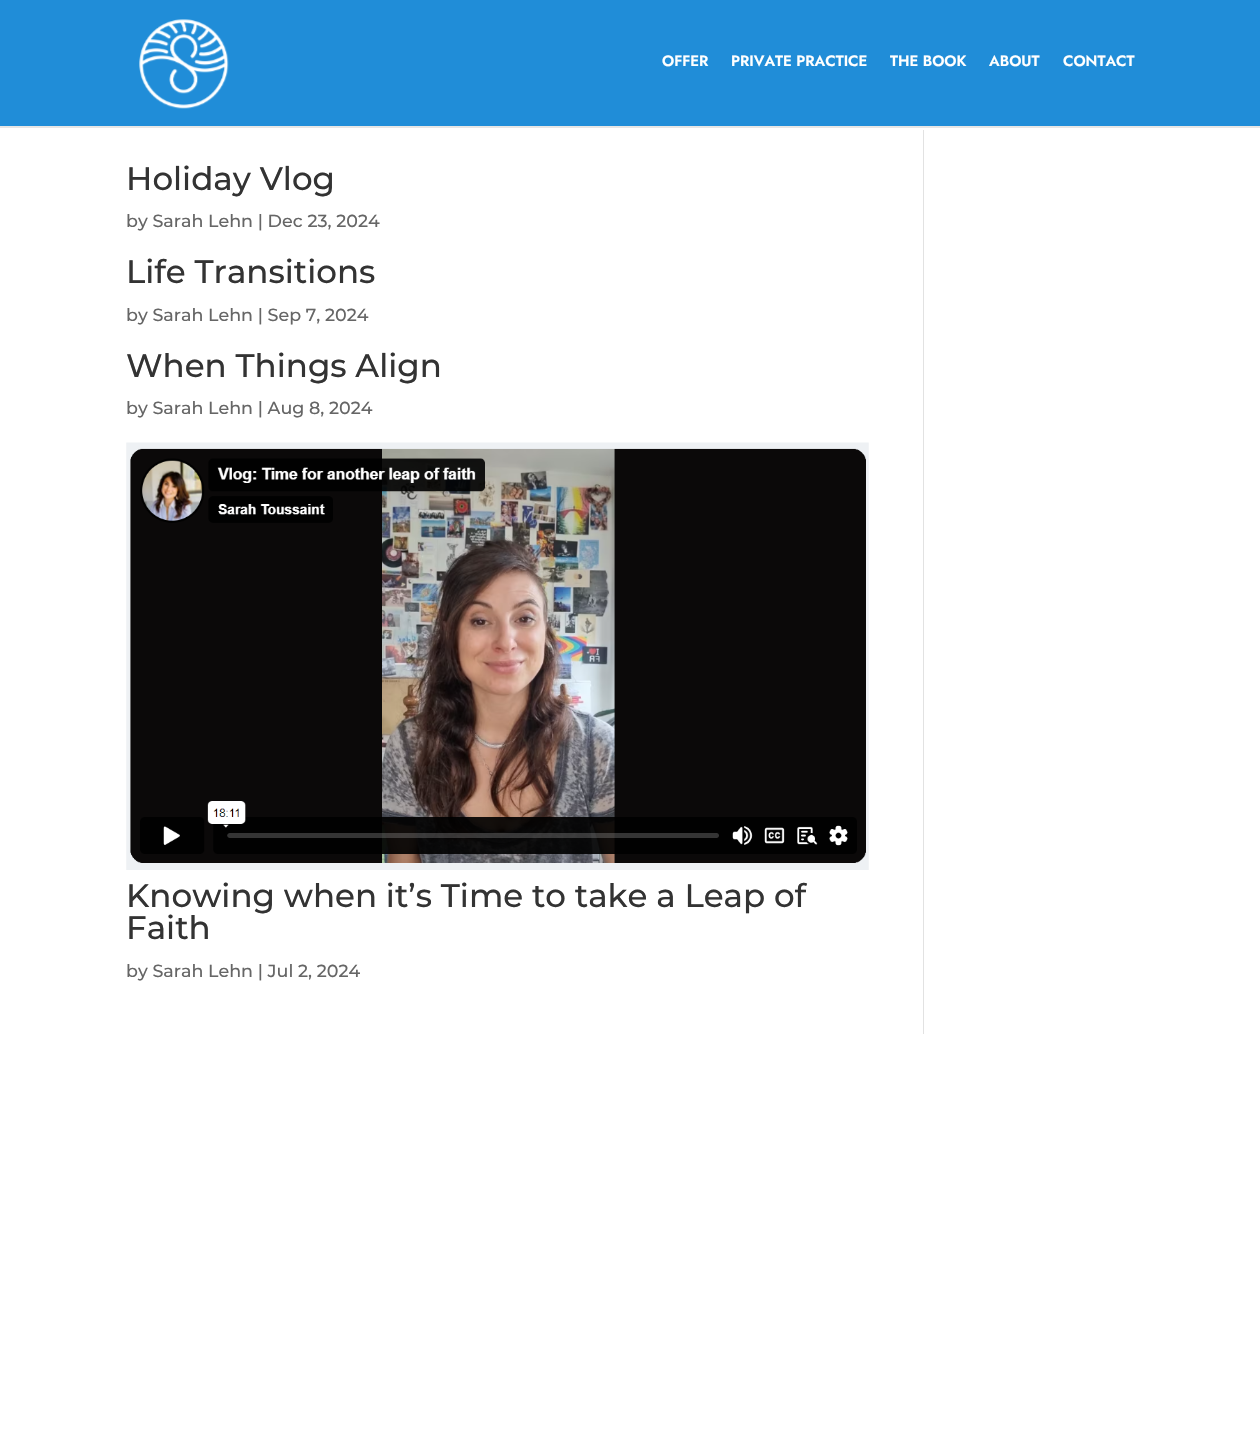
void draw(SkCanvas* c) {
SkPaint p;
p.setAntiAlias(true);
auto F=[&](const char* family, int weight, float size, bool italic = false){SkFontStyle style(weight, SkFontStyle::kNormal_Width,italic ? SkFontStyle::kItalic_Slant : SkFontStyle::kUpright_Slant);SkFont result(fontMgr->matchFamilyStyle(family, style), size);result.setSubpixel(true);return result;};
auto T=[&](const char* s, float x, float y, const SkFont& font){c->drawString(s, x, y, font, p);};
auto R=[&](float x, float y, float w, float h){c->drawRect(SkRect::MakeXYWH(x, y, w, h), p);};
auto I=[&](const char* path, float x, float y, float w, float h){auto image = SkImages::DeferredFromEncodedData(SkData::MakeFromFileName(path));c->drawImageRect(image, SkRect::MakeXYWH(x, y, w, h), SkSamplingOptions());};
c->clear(0xffffffff);
p.setColor(0xffe6e6e6);
R(0,126,1260,2);
p.setColor(0xff208dd8);
R(0,0,1260,126);
I("1.png",139,19,90,90);
auto f1 = F("Jost",600,15);
p.setColor(0xffffffff);
T("OFFER",662,66,f1);
T("PRIVATE PRACTICE",731,66,f1);
T("THE BOOK",890,66,f1);
T("ABOUT",989,66,f1);
T("CONTACT",1063,66,f1);
auto f2 = F("Montserrat",500,32.5);
p.setColor(0xff333333);
T("Holiday Vlog",126,190,f2);
auto f3 = F("Montserrat",500,17.5);
p.setColor(0xff666666);
T("by Sarah Lehn | Dec 23, 2024",126,227,f3);
p.setColor(0xff333333);
T("Life Transitions",126,283,f2);
p.setColor(0xff666666);
T("by Sarah Lehn | Sep 7, 2024",126,321,f3);
p.setColor(0xff333333);
T("When Things Align",126,377,f2);
p.setColor(0xff666666);
T("by Sarah Lehn | Aug 8, 2024",126,414,f3);
I("2.png",126,442,743,428);
p.setColor(0xff333333);
T("Knowing when it’s Time to take a Leap of",126,907,f2);
T("Faith",126,939,f2);
p.setColor(0xff666666);
T("by Sarah Lehn | Jul 2, 2024",126,977,f3);
p.setColor(0xffe2e2e2);
R(923,130,1,904);
}
